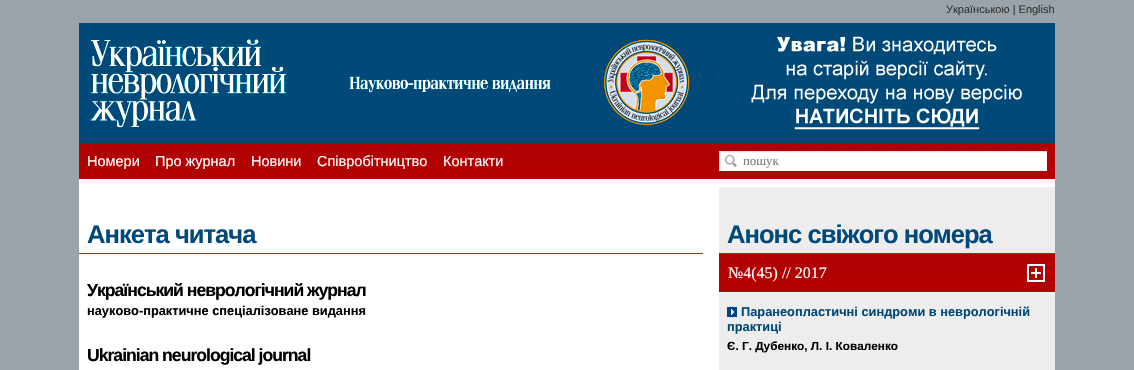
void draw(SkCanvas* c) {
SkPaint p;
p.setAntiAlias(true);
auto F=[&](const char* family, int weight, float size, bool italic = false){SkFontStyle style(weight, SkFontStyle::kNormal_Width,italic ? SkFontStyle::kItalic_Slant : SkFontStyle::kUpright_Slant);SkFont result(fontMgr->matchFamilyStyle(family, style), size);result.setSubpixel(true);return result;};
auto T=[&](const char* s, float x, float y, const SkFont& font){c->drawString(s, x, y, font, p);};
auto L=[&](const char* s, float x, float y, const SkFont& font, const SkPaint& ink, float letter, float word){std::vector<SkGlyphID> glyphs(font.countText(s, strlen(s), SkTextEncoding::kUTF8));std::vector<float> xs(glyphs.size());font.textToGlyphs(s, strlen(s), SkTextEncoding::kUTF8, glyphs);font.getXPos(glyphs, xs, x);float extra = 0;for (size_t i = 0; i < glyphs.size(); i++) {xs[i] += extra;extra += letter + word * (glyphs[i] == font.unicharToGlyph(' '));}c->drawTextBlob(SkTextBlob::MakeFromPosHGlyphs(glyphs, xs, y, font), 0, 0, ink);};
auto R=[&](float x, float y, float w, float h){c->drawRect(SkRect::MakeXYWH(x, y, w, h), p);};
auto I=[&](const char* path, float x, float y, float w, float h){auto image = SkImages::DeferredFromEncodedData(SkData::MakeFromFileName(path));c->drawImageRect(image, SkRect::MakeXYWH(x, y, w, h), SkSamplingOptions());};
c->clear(0xff9aa3a9);
auto f1 = F("Liberation Sans",400,11);
p.setColor(0xff333333);
T("Українською | English",946,13,f1);
p.setColor(0xffffffff);
R(79,179,976,191);
p.setColor(0xff004978);
R(79,23,976,120);
I("1.png",90,39,600,89);
I("2.png",751,33,271,99);
p.setColor(0xffb30000);
R(79,143,976,36);
I("3.png",79,143,976,25);
auto f2 = F("Liberation Sans",400,14.5);
p.setColor(0xffffffff);
T("Номери",87,166,f2);
T("Про журнал",155,166,f2);
T("Новини",251,166,f2);
T("Співробітництво",317,166,f2);
T("Контакти",443,166,f2);
I("4.png",719,151,328,20);
auto f3 = F("Liberation Serif",400,12.8);
p.setColor(0xff777777);
T("пошук",743,165,f3);
p.setColor(0xff005b9f);
R(79,253,624,1);
auto f4 = F("Liberation Sans",700,25.6);
p.setColor(0xff004978);
L("Анкета читача",87,243,f4,p,-1,0);
auto f5 = F("Liberation Sans",700,17.6);
p.setColor(0xff000000);
L("Український неврологічний журнал",87,296,f5,p,-1,0);
auto f6 = F("Liberation Sans",700,12.8);
T("науково-практичне спеціалізоване видання",87,315,f6);
L("Ukrainian neurological journal",87,361,f5,p,-1,0);
p.setColor(0xffededed);
R(719,187,336,183);
p.setColor(0xff005b9f);
R(719,253,336,1);
p.setColor(0xff004978);
L("Анонс свіжого номера",727,243,f4,p,-1,0);
p.setColor(0xffb30000);
R(719,254,336,38);
I("5.png",1027,264,18,18);
I("6.png",719,254,336,25);
auto f7 = F("Liberation Serif",400,16);
p.setColor(0xffffffff);
T("№4(45) // 2017",728,278,f7);
I("7.png",727,307,10,10);
p.setColor(0xff004978);
T("Паранеопластичні синдроми в неврологічній",741,316,f6);
T("практиці",727,331,f6);
auto f8 = F("Liberation Sans",700,11.8);
p.setColor(0xff000000);
T("Є. Г. Дубенко, Л. І. Коваленко",727,350,f8);
}
